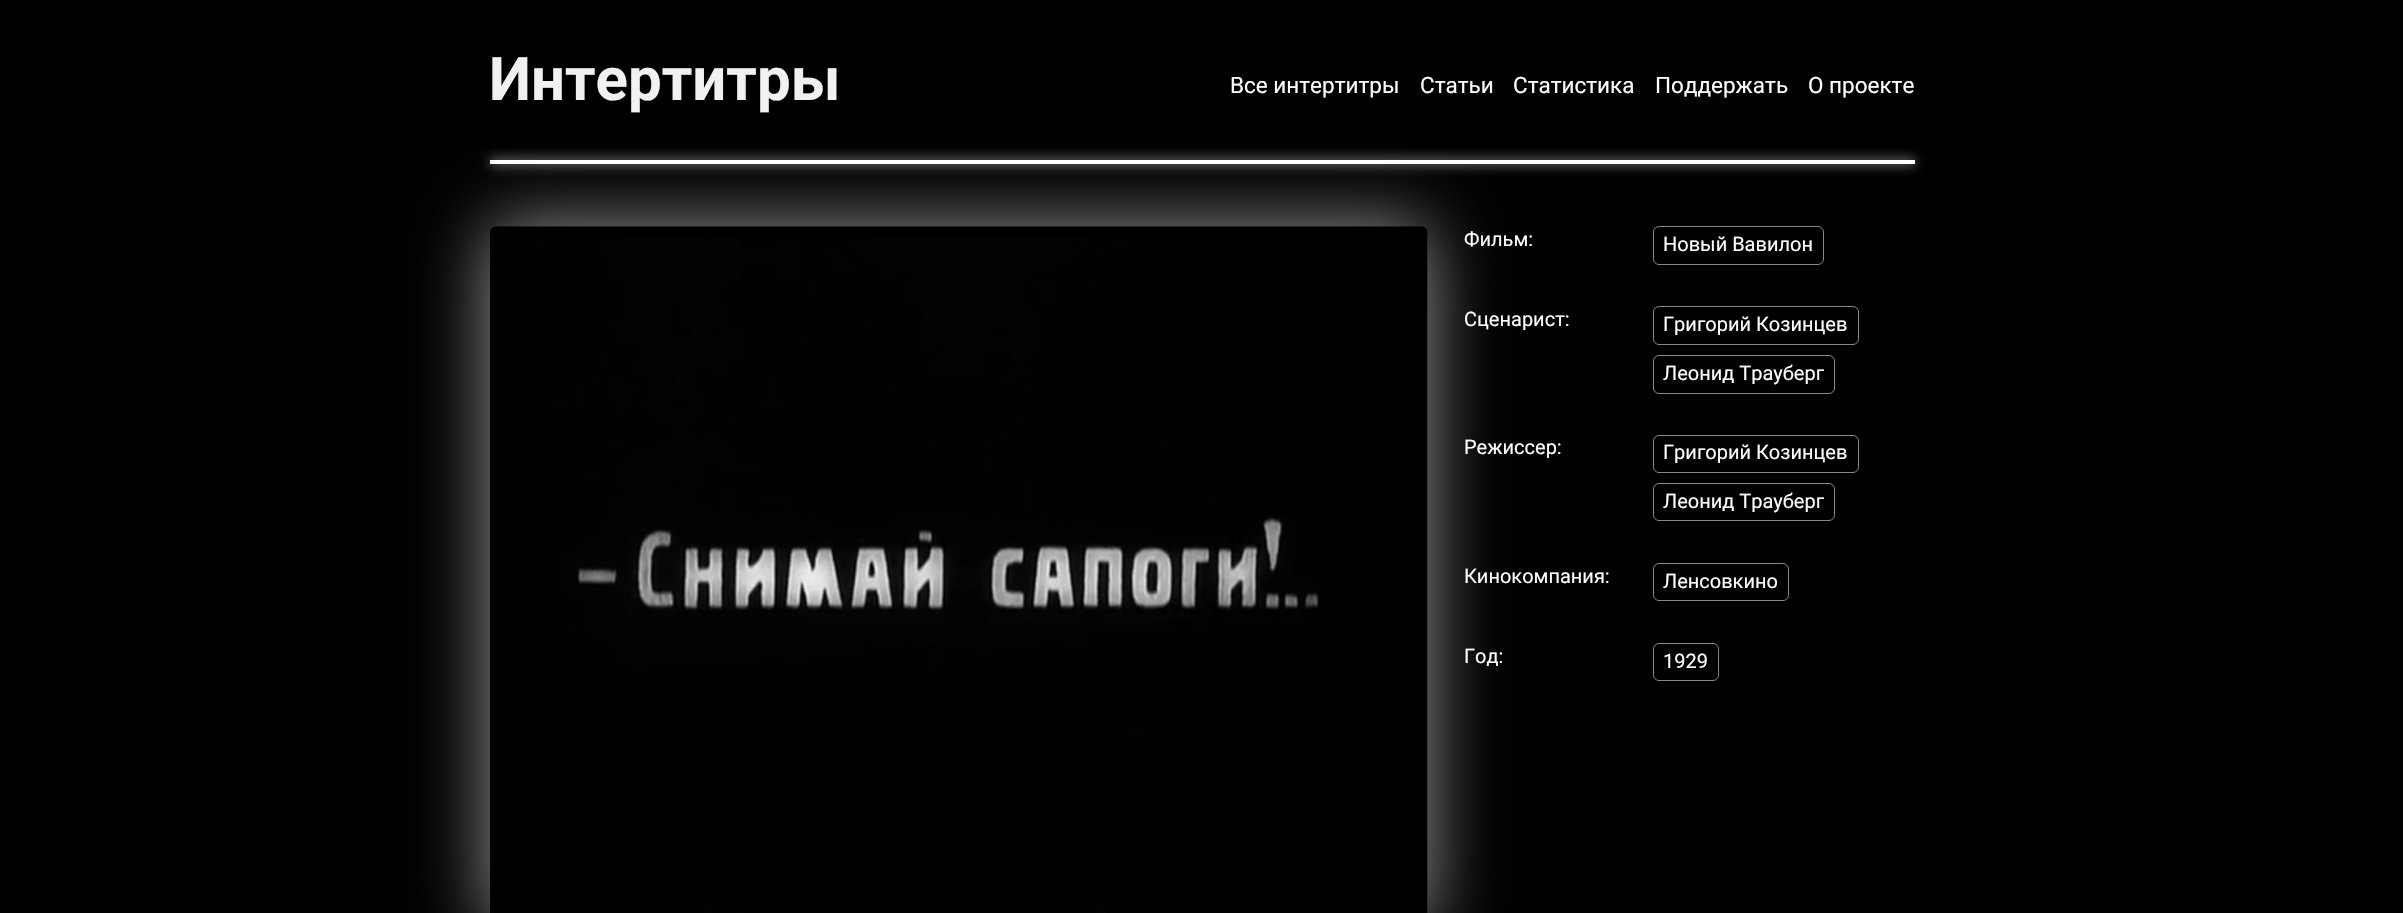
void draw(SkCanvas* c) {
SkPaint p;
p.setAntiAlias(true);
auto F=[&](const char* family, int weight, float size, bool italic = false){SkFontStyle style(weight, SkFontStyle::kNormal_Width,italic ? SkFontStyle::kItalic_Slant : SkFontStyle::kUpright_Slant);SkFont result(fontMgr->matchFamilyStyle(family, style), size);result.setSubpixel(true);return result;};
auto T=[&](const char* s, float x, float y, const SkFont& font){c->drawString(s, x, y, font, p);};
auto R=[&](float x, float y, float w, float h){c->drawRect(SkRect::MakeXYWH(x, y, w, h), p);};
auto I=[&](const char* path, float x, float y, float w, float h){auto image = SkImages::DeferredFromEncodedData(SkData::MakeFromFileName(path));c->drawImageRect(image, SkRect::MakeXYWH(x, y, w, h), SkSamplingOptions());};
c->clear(0xff000000);
p.setColor(0xccffffff);
p.setMaskFilter(SkMaskFilter::MakeBlur(kNormal_SkBlurStyle, 6));
c->drawRect(SkRect::MakeXYWH(490,160,1425,4),p);
p.setMaskFilter(nullptr);
p.setColor(0xffffffff);
R(490,160,1425,4);
p.setColor(0x99ffffff);
p.setMaskFilter(SkMaskFilter::MakeBlur(kNormal_SkBlurStyle, 37.5));
c->drawRoundRect(SkRect::MakeXYWH(490,226,938,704),6,6,p);
p.setMaskFilter(nullptr);
auto f1 = F("Roboto",700,60);
p.setColor(0xfff1f1f1);
T("Интертитры",489,100,f1);
auto f2 = F("Roboto",400,22.5);
p.setColor(0xffffffff);
T("Все интертитры",1230,93,f2);
T("Статьи",1420,93,f2);
T("Статистика",1513,93,f2);
T("Поддержать",1655,93,f2);
T("О проекте",1808,93,f2);
I("1.png",490,226,938,687);
auto f3 = F("Roboto",400,20);
T("Фильм:",1464,246,f3);
p.setStroke(true);
p.setStrokeWidth(1);
p.setColor(0xff888888);
c->drawRoundRect(SkRect::MakeXYWH(1653.5,226.5,170,38),5.5,5.5,p);
p.setStroke(false);
p.setColor(0xffffffff);
T("Новый Вавилон",1663,251,f3);
T("Сценарист:",1464,326,f3);
p.setStroke(true);
p.setColor(0xff888888);
c->drawRoundRect(SkRect::MakeXYWH(1653.5,306.5,205,38),5.5,5.5,p);
p.setStroke(false);
p.setColor(0xffffffff);
T("Григорий Козинцев",1663,331,f3);
p.setStroke(true);
p.setColor(0xff888888);
c->drawRoundRect(SkRect::MakeXYWH(1653.5,355.5,181,38),5.5,5.5,p);
p.setStroke(false);
p.setColor(0xffffffff);
T("Леонид Трауберг",1663,380,f3);
T("Режиссер:",1464,454,f3);
p.setStroke(true);
p.setColor(0xff888888);
c->drawRoundRect(SkRect::MakeXYWH(1653.5,435.5,205,37),5.5,5.5,p);
p.setStroke(false);
p.setColor(0xffffffff);
T("Григорий Козинцев",1663,459,f3);
p.setStroke(true);
p.setColor(0xff888888);
c->drawRoundRect(SkRect::MakeXYWH(1653.5,483.5,181,37),5.5,5.5,p);
p.setStroke(false);
p.setColor(0xffffffff);
T("Леонид Трауберг",1663,508,f3);
T("Кинокомпания:",1464,583,f3);
p.setStroke(true);
p.setColor(0xff888888);
c->drawRoundRect(SkRect::MakeXYWH(1653.5,563.5,135,37),5.5,5.5,p);
p.setStroke(false);
p.setColor(0xffffffff);
T("Ленсовкино",1663,588,f3);
T("Год:",1464,663,f3);
p.setStroke(true);
p.setColor(0xff888888);
c->drawRoundRect(SkRect::MakeXYWH(1653.5,643.5,65,37),5.5,5.5,p);
p.setStroke(false);
p.setColor(0xffffffff);
T("1929",1663,668,f3);
}
